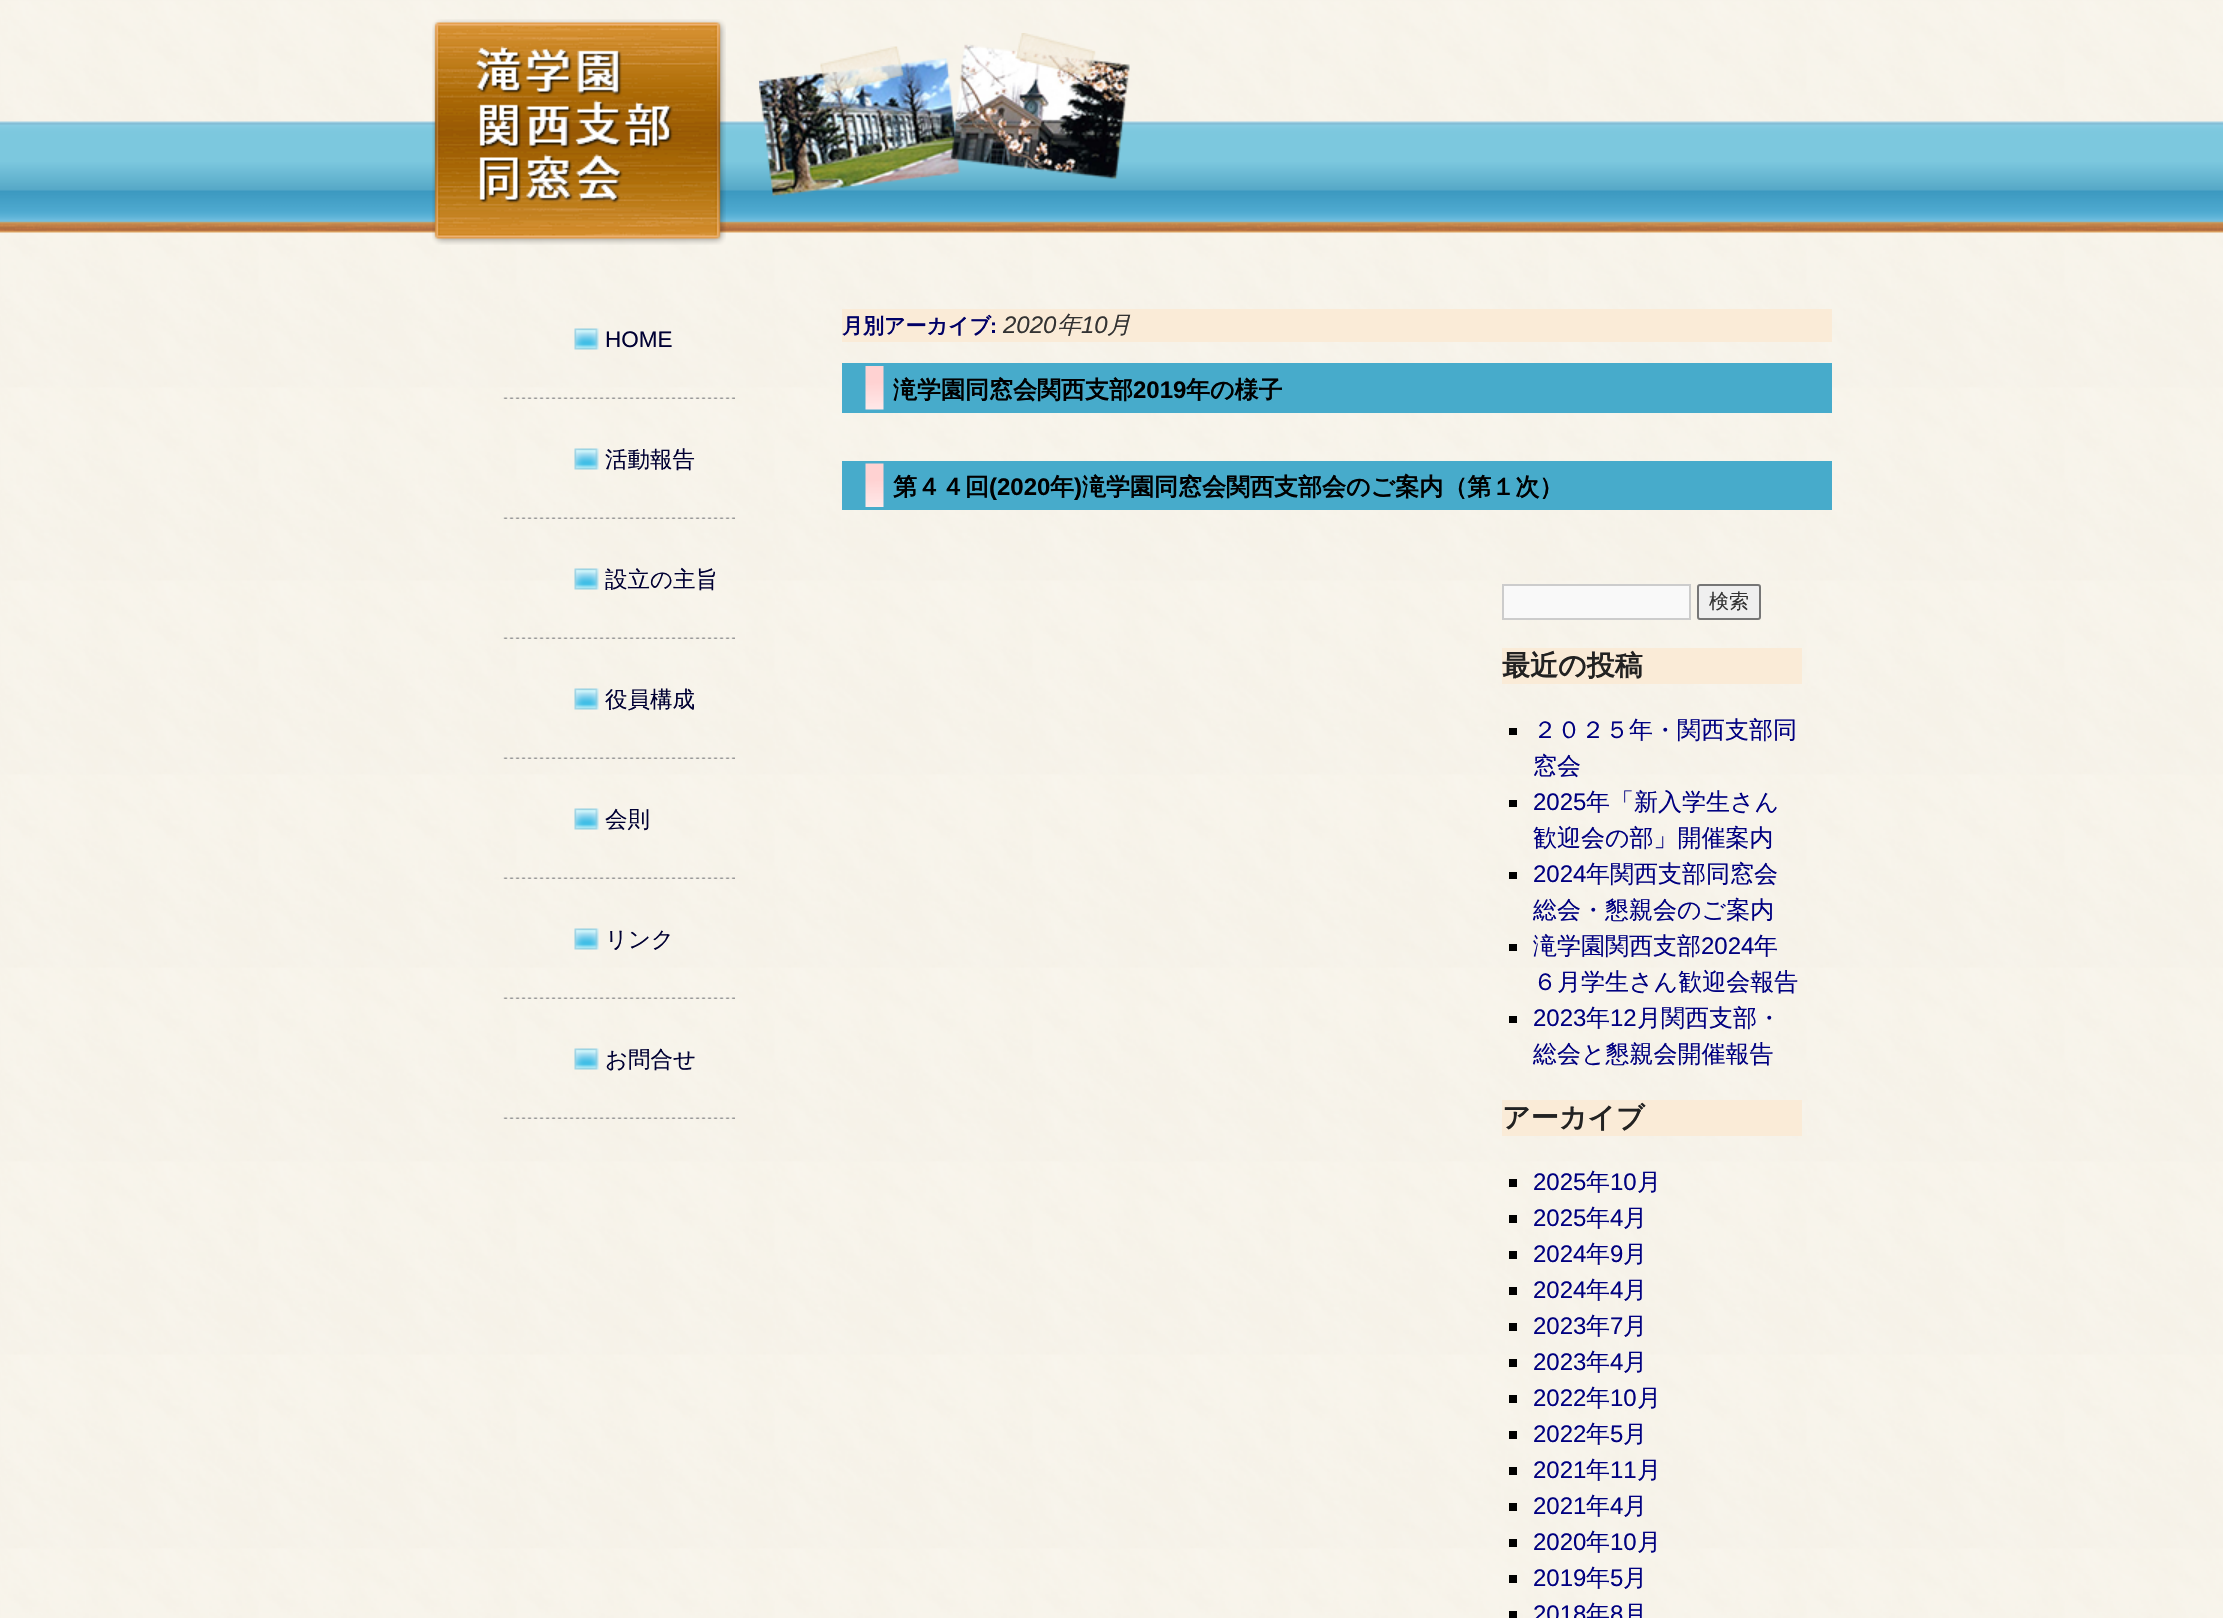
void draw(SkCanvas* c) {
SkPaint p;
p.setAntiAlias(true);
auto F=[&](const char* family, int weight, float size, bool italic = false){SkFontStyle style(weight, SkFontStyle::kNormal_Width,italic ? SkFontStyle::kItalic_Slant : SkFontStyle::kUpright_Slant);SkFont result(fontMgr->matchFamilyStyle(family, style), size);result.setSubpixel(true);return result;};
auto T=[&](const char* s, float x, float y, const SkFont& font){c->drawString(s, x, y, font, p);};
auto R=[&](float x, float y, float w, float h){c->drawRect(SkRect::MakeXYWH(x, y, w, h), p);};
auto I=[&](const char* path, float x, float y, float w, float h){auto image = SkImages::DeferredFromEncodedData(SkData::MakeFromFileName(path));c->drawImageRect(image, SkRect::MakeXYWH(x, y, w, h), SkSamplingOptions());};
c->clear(0xffffffff);
I("1.png",0,0,2223,1618);
I("2.png",0,121,2223,112);
I("3.png",432,19,294,226);
I("4.png",759,33,371,164);
I("5.png",503,397,232,2);
I("6.png",574,328,25,22);
auto f1 = F("Liberation Sans",400,22.5);
p.setColor(0xff000033);
T("HOME",605,347,f1);
I("7.png",503,517,232,2);
I("8.png",574,448,25,22);
auto f2 = F("WenQuanYi Zen Hei",500,22.5);
T("活動報告",605,467,f2);
I("9.png",503,637,232,2);
I("10.png",574,568,25,22);
T("設立の主旨",605,587,f2);
I("11.png",503,757,232,2);
I("12.png",574,688,25,22);
T("役員構成",605,707,f2);
I("13.png",503,877,232,2);
I("14.png",574,808,25,22);
T("会則",605,827,f2);
I("15.png",503,997,232,2);
I("16.png",574,928,25,22);
T("リンク",605,947,f2);
I("17.png",503,1117,232,2);
I("18.png",574,1048,25,22);
T("お問合せ",605,1067,f2);
p.setColor(0xfffaebd7);
R(842,309,990,33);
auto f3 = F("WenQuanYi Zen Hei",700,21);
p.setColor(0xff000066);
T("月別アーカイブ",842,333,f3);
auto f4 = F("Liberation Sans",700,21);
T(":",990,333,f4);
auto f5 = F("Liberation Sans",400,24,true);
p.setColor(0xff333333);
T("2020",1003,333,f5);
auto f6 = F("WenQuanYi Zen Hei",500,24,true);
T("年",1057,333,f6);
T("10",1081,333,f5);
T("月",1107,333,f6);
p.setColor(0xff47abcb);
R(842,363,990,50);
I("19.png",865,366,19,44);
auto f7 = F("WenQuanYi Zen Hei",700,24);
p.setColor(0xff000000);
T("滝学園同窓会関西支部",893,398,f7);
auto f8 = F("Liberation Sans",700,24);
T("2019",1133,398,f8);
T("年の様子",1186,398,f7);
p.setColor(0xff47abcb);
R(842,461,990,49);
I("20.png",865,463,19,44);
p.setColor(0xff000000);
T("第４４回",893,495,f7);
T("(2020",989,495,f8);
T("年",1050,495,f7);
T(")",1074,495,f8);
T("滝学園同窓会関西支部会のご案内（第１次）",1082,495,f7);
p.setColor(0xfff9f9f9);
c->drawRect(SkRect::MakeXYWH(1503,585,187,34),p);
p.setStroke(true);
p.setStrokeWidth(2);
p.setColor(0xffcccccc);
c->drawRect(SkRect::MakeXYWH(1503,585,187,34),p);
p.setStroke(false);
p.setColor(0xffefefef);
c->drawRoundRect(SkRect::MakeXYWH(1698,585,62,34),2,2,p);
p.setStroke(true);
p.setColor(0xff767676);
c->drawRoundRect(SkRect::MakeXYWH(1698,585,62,34),2,2,p);
auto f9 = F("WenQuanYi Zen Hei",500,20);
p.setStroke(false);
p.setColor(0xff333333);
T("検索",1709,608,f9);
p.setColor(0xfffaebd7);
R(1502,648,300,36);
auto f10 = F("WenQuanYi Zen Hei",700,28);
p.setColor(0xff222222);
T("最近の投稿",1502,675,f10);
p.setColor(0xff000000);
R(1509,728,8,7);
auto f11 = F("WenQuanYi Zen Hei",500,24);
p.setColor(0xff000080);
T("２０２５年・関西支部同",1533,738,f11);
T("窓会",1533,774,f11);
p.setColor(0xff000000);
R(1509,800,8,7);
auto f12 = F("Liberation Sans",400,24);
p.setColor(0xff000080);
T("2025",1533,810,f12);
T("年「新入学生さん",1586,810,f11);
T("歓迎会の部」開催案内",1533,846,f11);
p.setColor(0xff000000);
R(1509,872,8,7);
p.setColor(0xff000080);
T("2024",1533,882,f12);
T("年関西支部同窓会",1586,882,f11);
T("総会・懇親会のご案内",1533,918,f11);
p.setColor(0xff000000);
R(1509,944,8,7);
p.setColor(0xff000080);
T("滝学園関西支部",1533,954,f11);
T("2024",1701,954,f12);
T("年",1754,954,f11);
T("６月学生さん歓迎会報告",1533,990,f11);
p.setColor(0xff000000);
R(1509,1016,8,7);
p.setColor(0xff000080);
T("2023",1533,1026,f12);
T("年",1586,1026,f11);
T("12",1610,1026,f12);
T("月関西支部・",1637,1026,f11);
T("総会と懇親会開催報告",1533,1062,f11);
p.setColor(0xfffaebd7);
R(1502,1100,300,36);
p.setColor(0xff222222);
T("アーカイブ",1502,1127,f10);
p.setColor(0xff000000);
R(1509,1179,8,8);
p.setColor(0xff000080);
T("2025",1533,1190,f12);
T("年",1586,1190,f11);
T("10",1610,1190,f12);
T("月",1637,1190,f11);
p.setColor(0xff000000);
R(1509,1215,8,8);
p.setColor(0xff000080);
T("2025",1533,1226,f12);
T("年",1586,1226,f11);
T("4",1610,1226,f12);
T("月",1623,1226,f11);
p.setColor(0xff000000);
R(1509,1251,8,8);
p.setColor(0xff000080);
T("2024",1533,1262,f12);
T("年",1586,1262,f11);
T("9",1610,1262,f12);
T("月",1623,1262,f11);
p.setColor(0xff000000);
R(1509,1287,8,8);
p.setColor(0xff000080);
T("2024",1533,1298,f12);
T("年",1586,1298,f11);
T("4",1610,1298,f12);
T("月",1623,1298,f11);
p.setColor(0xff000000);
R(1509,1323,8,8);
p.setColor(0xff000080);
T("2023",1533,1334,f12);
T("年",1586,1334,f11);
T("7",1610,1334,f12);
T("月",1623,1334,f11);
p.setColor(0xff000000);
R(1509,1359,8,8);
p.setColor(0xff000080);
T("2023",1533,1370,f12);
T("年",1586,1370,f11);
T("4",1610,1370,f12);
T("月",1623,1370,f11);
p.setColor(0xff000000);
R(1509,1395,8,8);
p.setColor(0xff000080);
T("2022",1533,1406,f12);
T("年",1586,1406,f11);
T("10",1610,1406,f12);
T("月",1637,1406,f11);
p.setColor(0xff000000);
R(1509,1431,8,8);
p.setColor(0xff000080);
T("2022",1533,1442,f12);
T("年",1586,1442,f11);
T("5",1610,1442,f12);
T("月",1623,1442,f11);
p.setColor(0xff000000);
R(1509,1467,8,8);
p.setColor(0xff000080);
T("2021",1533,1478,f12);
T("年",1586,1478,f11);
T("11",1610,1478,f12);
T("月",1637,1478,f11);
p.setColor(0xff000000);
R(1509,1503,8,8);
p.setColor(0xff000080);
T("2021",1533,1514,f12);
T("年",1586,1514,f11);
T("4",1610,1514,f12);
T("月",1623,1514,f11);
p.setColor(0xff000000);
R(1509,1539,8,8);
p.setColor(0xff000080);
T("2020",1533,1550,f12);
T("年",1586,1550,f11);
T("10",1610,1550,f12);
T("月",1637,1550,f11);
p.setColor(0xff000000);
R(1509,1575,8,8);
p.setColor(0xff000080);
T("2019",1533,1586,f12);
T("年",1586,1586,f11);
T("5",1610,1586,f12);
T("月",1623,1586,f11);
p.setColor(0xff000000);
R(1509,1611,8,7);
p.setColor(0xff000080);
T("2018",1533,1622,f12);
T("年",1586,1622,f11);
T("8",1610,1622,f12);
T("月",1623,1622,f11);
}
